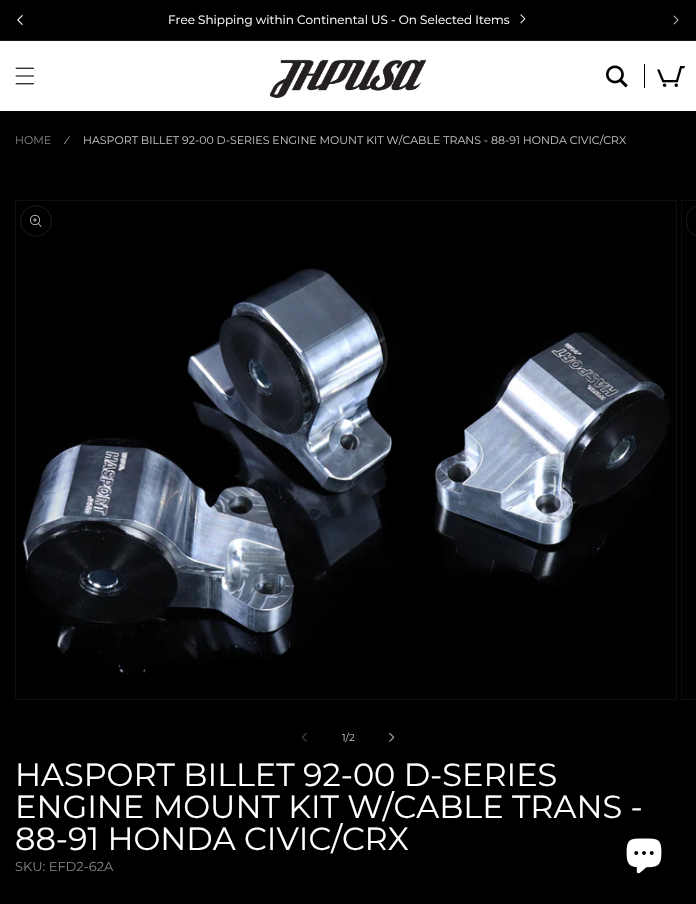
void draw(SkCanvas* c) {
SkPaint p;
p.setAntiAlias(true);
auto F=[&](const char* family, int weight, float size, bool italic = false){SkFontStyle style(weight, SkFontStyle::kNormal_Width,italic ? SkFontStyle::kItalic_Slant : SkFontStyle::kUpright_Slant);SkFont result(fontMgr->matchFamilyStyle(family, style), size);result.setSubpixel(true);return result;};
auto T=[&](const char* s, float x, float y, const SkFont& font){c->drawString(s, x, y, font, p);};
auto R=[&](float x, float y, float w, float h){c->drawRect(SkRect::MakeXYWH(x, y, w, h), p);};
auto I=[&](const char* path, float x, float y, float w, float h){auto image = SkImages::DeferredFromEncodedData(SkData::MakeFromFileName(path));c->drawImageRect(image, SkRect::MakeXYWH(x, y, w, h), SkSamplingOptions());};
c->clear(0xff000000);
I("1.png",17,15,6,10);
p.setColor(0xff141414);
R(0,40,696,1);
auto f1 = F("Montserrat",400,12);
p.setColor(0xffffffff);
T("Free Shipping within Continental US - On Selected Items",168,24,f1);
I("2.png",520,14,6,10);
I("3.png",673,15,6,10);
R(0,41,696,70);
I("4.png",15,67,20,18);
I("5.png",269,59,158,40);
I("6.png",606,65,22,23);
p.setColor(0xff000000);
R(644,64,1,24);
I("7.png",657,66,28,21);
auto f2 = F("Montserrat",400,11);
p.setColor(0xff808080);
T("HOME",15,144,f2);
p.setColor(0xffbfbfbf);
T("⁄",66,144,f2);
T("HASPORT BILLET 92-00 D-SERIES ENGINE MOUNT KIT W/CABLE TRANS - 88-91 HONDA CIVIC/CRX",83,144,f2);
p.setStroke(true);
p.setStrokeWidth(1);
p.setColor(0xff0d0d0d);
c->drawRect(SkRect::MakeXYWH(15.5,200.5,661,499),p);
I("8.png",22,268,649,408);
p.setColor(0xff1a1a1a);
c->drawCircle(36,221,15.5,p);
I("9.png",30,215,12,12);
p.setColor(0xff0d0d0d);
c->drawRect(SkRect::MakeXYWH(681.5,200.5,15,499),p);
p.setColor(0xff1a1a1a);
c->drawRoundRect(SkRect::MakeXYWH(686.5,205.5,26,31),15.5,15.5,p);
I("10.png",302,733,5,9);
auto f3 = F("Montserrat",400,10);
p.setStroke(false);
p.setColor(0xffbfbfbf);
T("1/",342,741,f3);
T("2",349,741,f3);
I("11.png",389,732,6,10);
auto f4 = F("Montserrat",400,32);
p.setColor(0xffffffff);
T("HASPORT BILLET 92-00 D-SERIES",15,786,f4);
T("ENGINE MOUNT KIT W/CABLE TRANS -",15,818,f4);
T("88-91 HONDA CIVIC/CRX",15,850,f4);
auto f5 = F("Montserrat",400,13);
p.setColor(0xff808080);
T("SKU: EFD2-62A",15,871,f5);
I("12.png",626,838,36,36);
}
